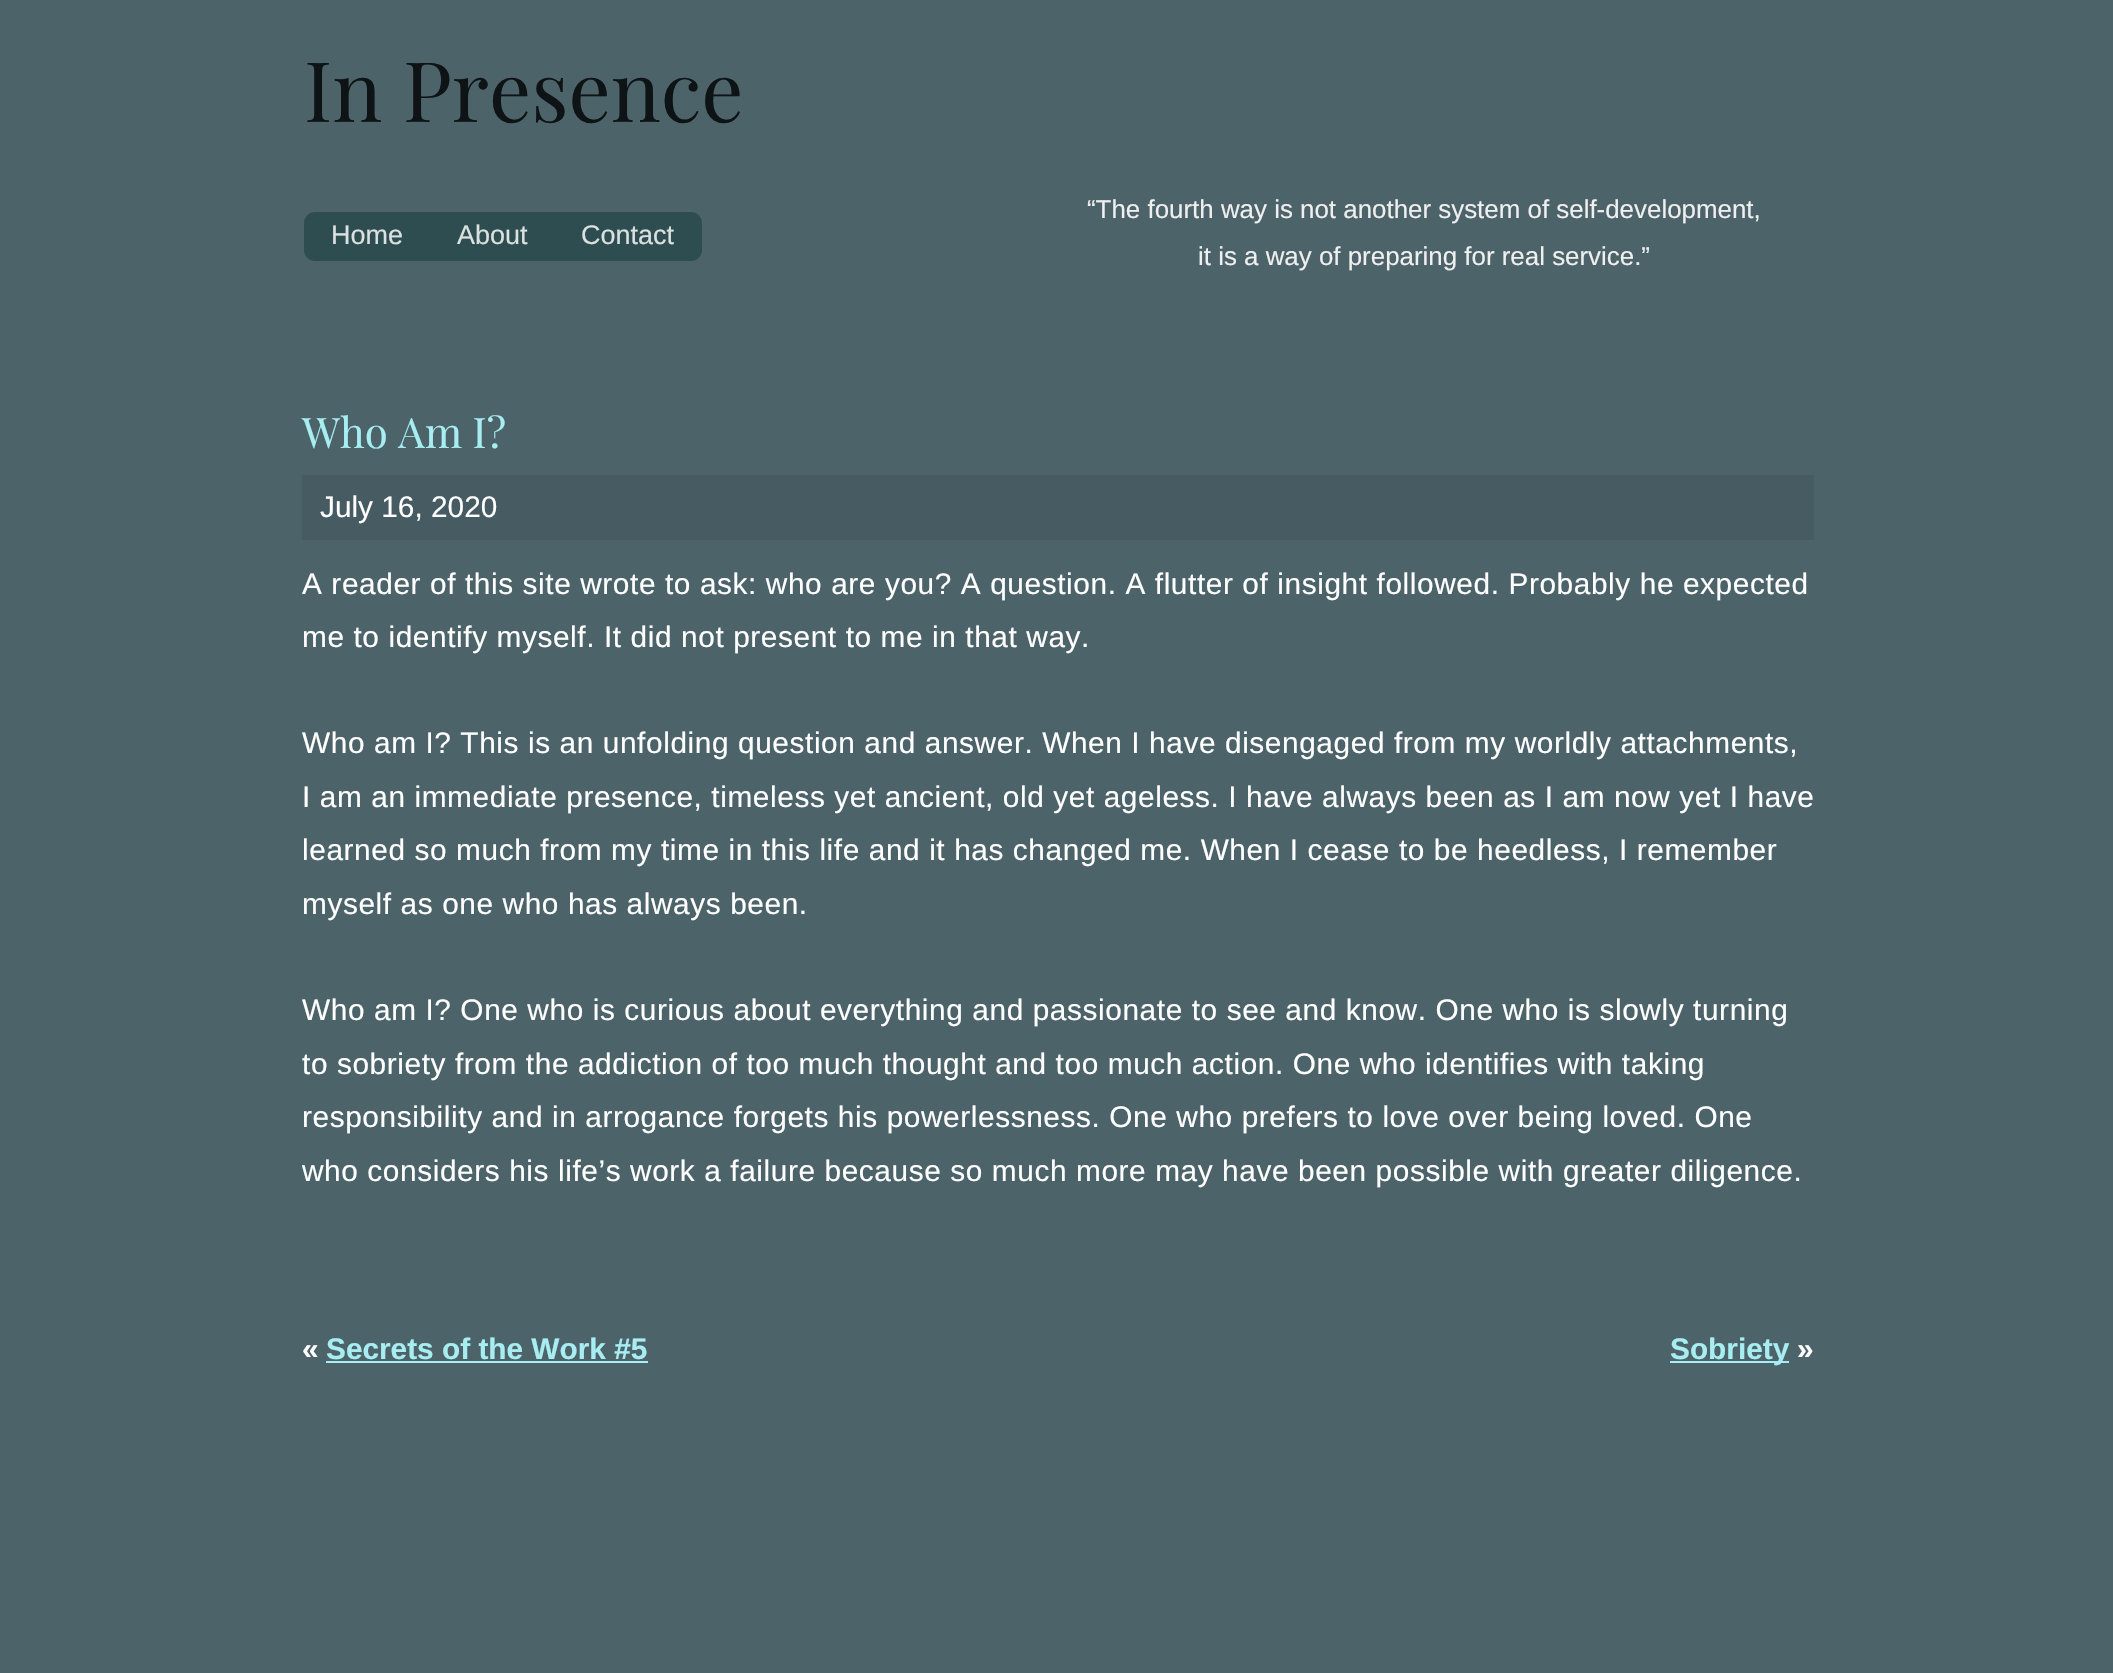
void draw(SkCanvas* c) {
SkPaint p;
p.setAntiAlias(true);
auto F=[&](const char* family, int weight, float size, bool italic = false){SkFontStyle style(weight, SkFontStyle::kNormal_Width,italic ? SkFontStyle::kItalic_Slant : SkFontStyle::kUpright_Slant);SkFont result(fontMgr->matchFamilyStyle(family, style), size);result.setSubpixel(true);return result;};
auto T=[&](const char* s, float x, float y, const SkFont& font){c->drawString(s, x, y, font, p);};
auto L=[&](const char* s, float x, float y, const SkFont& font, const SkPaint& ink, float letter, float word){std::vector<SkGlyphID> glyphs(font.countText(s, strlen(s), SkTextEncoding::kUTF8));std::vector<float> xs(glyphs.size());font.textToGlyphs(s, strlen(s), SkTextEncoding::kUTF8, glyphs);font.getXPos(glyphs, xs, x);float extra = 0;for (size_t i = 0; i < glyphs.size(); i++) {xs[i] += extra;extra += letter + word * (glyphs[i] == font.unicharToGlyph(' '));}c->drawTextBlob(SkTextBlob::MakeFromPosHGlyphs(glyphs, xs, y, font), 0, 0, ink);};
auto R=[&](float x, float y, float w, float h){c->drawRect(SkRect::MakeXYWH(x, y, w, h), p);};
auto Q=[&](float x, float y, float w, float h, float radius){c->drawRoundRect(SkRect::MakeXYWH(x, y, w, h), radius, radius, p);};
c->clear(0xff4c636a);
auto f1 = F("Playfair Display",400,83.5);
p.setColor(0xff0e1415);
T("In Presence",304,122,f1);
p.setColor(0xff2e4d50);
Q(304,212,398,49,11);
auto f2 = F("Liberation Sans",400,27);
p.setColor(0xffdbe0e1);
T("Home",331,244,f2);
T("About",457,244,f2);
T("Contact",581,244,f2);
auto f3 = F("Liberation Sans",400,25.9);
p.setColor(0xffefefef);
T("“The fourth way is not another system of self-development,",1087,218,f3);
T("it is a way of preparing for real service.”",1198,265,f3);
auto f4 = F("Playfair Display",400,42);
p.setColor(0xffa7edf1);
T("Who Am I?",302,448,f4);
p.setColor(0xff465b62);
R(302,475,1512,65);
auto f5 = F("Liberation Sans",400,29.8);
p.setColor(0xffffffff);
T("July 16, 2020",320,517,f5);
L("A reader of this site wrote to ask: who are you? A question. A flutter of insight followed. Probably he expected",302,594,f5,p,.6,0);
L("me to identify myself. It did not present to me in that way.",302,647,f5,p,.6,0);
L("Who am I? This is an unfolding question and answer. When I have disengaged from my worldly attachments,",302,753,f5,p,.6,0);
L("I am an immediate presence, timeless yet ancient, old yet ageless. I have always been as I am now yet I have",302,807,f5,p,.6,0);
L("learned so much from my time in this life and it has changed me. When I cease to be heedless, I remember",302,860,f5,p,.6,0);
L("myself as one who has always been.",302,914,f5,p,.6,0);
L("Who am I? One who is curious about everything and passionate to see and know. One who is slowly turning",302,1020,f5,p,.6,0);
L("to sobriety from the addiction of too much thought and too much action. One who identifies with taking",302,1074,f5,p,.6,0);
L("responsibility and in arrogance forgets his powerlessness. One who prefers to love over being loved. One",302,1127,f5,p,.6,0);
L("who considers his life’s work a failure because so much more may have been possible with greater diligence.",302,1181,f5,p,.6,0);
auto f6 = F("Liberation Sans",700,29.8);
T("«",302,1359,f6);
p.setColor(0xffa7edf1);
T("Secrets of the Work #5",326,1359,f6);
R(326,1361,322,2);
R(1670,1361,119,2);
T("Sobriety",1670,1359,f6);
p.setColor(0xffffffff);
T("»",1797,1359,f6);
}
